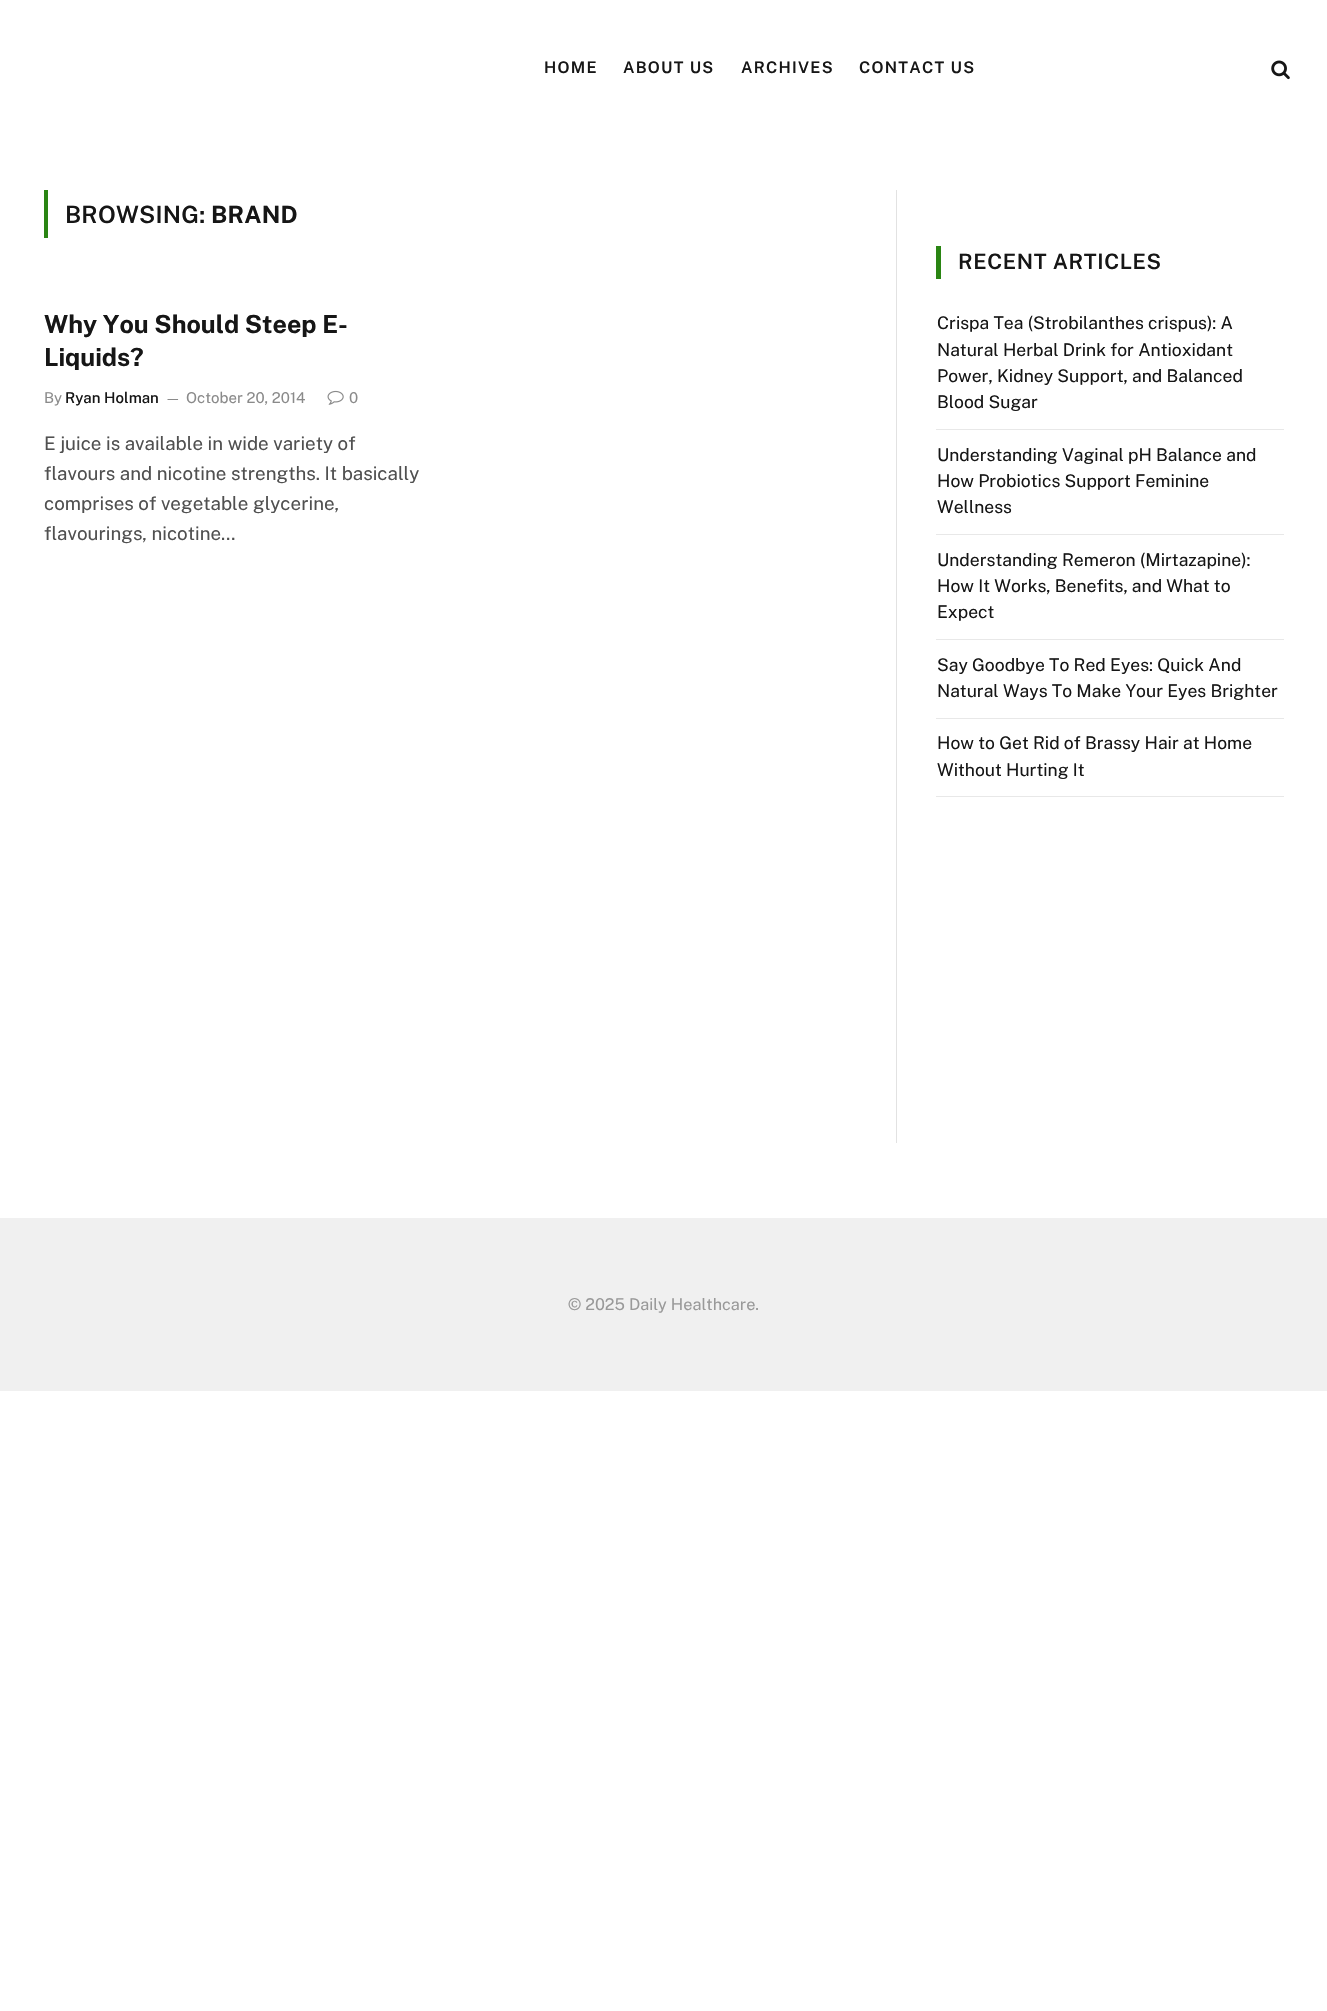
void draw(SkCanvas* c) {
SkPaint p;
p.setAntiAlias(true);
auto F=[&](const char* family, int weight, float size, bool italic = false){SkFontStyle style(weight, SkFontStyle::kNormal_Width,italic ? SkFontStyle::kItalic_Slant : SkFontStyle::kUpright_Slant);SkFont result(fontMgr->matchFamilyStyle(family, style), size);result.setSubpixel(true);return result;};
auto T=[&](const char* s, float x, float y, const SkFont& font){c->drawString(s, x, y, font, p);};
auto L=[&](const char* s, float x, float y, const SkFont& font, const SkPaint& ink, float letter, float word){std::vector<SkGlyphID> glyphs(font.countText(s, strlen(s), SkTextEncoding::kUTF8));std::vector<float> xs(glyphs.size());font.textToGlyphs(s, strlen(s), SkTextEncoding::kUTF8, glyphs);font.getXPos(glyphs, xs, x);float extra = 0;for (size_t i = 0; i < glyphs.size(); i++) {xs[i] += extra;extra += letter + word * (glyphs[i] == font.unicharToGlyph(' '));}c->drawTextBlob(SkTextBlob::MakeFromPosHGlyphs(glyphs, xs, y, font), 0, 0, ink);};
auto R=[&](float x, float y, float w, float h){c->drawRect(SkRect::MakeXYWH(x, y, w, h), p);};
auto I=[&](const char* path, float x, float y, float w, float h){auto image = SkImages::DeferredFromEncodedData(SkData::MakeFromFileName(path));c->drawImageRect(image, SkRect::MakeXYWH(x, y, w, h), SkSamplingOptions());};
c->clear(0xffffffff);
auto f1 = F("Public Sans",600,16);
p.setColor(0xff161616);
L("HOME",544,73,f1,p,1.25,0);
L("ABOUT US",623,73,f1,p,1.25,0);
L("ARCHIVES",741,73,f1,p,1.25,0);
L("CONTACT US",859,73,f1,p,1.25,0);
I("1.png",1271,60,19,20);
p.setColor(0xff2a8513);
R(44,190,4,48);
auto f2 = F("Public Sans",600,23.75);
p.setColor(0xff161616);
L("BROWSING:",65,223,f2,p,.25,0);
auto f3 = F("Public Sans",700,23.75);
L("BRAND",211,223,f3,p,.25,0);
auto f4 = F("Public Sans",700,25);
T("Why You Should Steep E-",44,333,f4);
T("Liquids?",44,366,f4);
auto f5 = F("Public Sans",400,15);
p.setColor(0xff8a8a8a);
T("By",44,403,f5);
auto f6 = F("Public Sans",500,15);
p.setColor(0xff161616);
T("Ryan Holman",65,403,f6);
auto f7 = F("Public Sans",400,14);
p.setColor(0xff8a8a8a);
T("—",165,403,f7);
T("October 20, 2014",186,403,f5);
I("2.png",327,390,17,15);
T("0",349,403,f5);
auto f8 = F("Public Sans",400,18.75);
p.setColor(0xff505050);
T("E juice is available in wide variety of",44,450,f8);
T("flavours and nicotine strengths. It basically",44,480,f8);
T("comprises of vegetable glycerine,",44,510,f8);
T("flavourings, nicotine…",44,540,f8);
p.setColor(0xffe2e2e2);
R(896,190,1,953);
p.setColor(0xff2a8513);
R(936,246,5,33);
auto f9 = F("Public Sans",600,21.25);
p.setColor(0xff161616);
L("RECENT ARTICLES",958,269,f9,p,.6,0);
p.setColor(0xffe8e8e8);
R(936,429,348,1);
auto f10 = F("Public Sans",400,17.5);
p.setColor(0xff161616);
T("Crispa Tea (Strobilanthes crispus): A",937,329,f10);
T("Natural Herbal Drink for Antioxidant",937,356,f10);
T("Power, Kidney Support, and Balanced",937,382,f10);
T("Blood Sugar",937,408,f10);
p.setColor(0xffe8e8e8);
R(936,534,348,1);
p.setColor(0xff161616);
T("Understanding Vaginal pH Balance and",937,461,f10);
T("How Probiotics Support Feminine",937,487,f10);
T("Wellness",937,513,f10);
p.setColor(0xffe8e8e8);
R(936,639,348,1);
p.setColor(0xff161616);
T("Understanding Remeron (Mirtazapine):",937,566,f10);
T("How It Works, Benefits, and What to",937,592,f10);
T("Expect",937,618,f10);
p.setColor(0xffe8e8e8);
R(936,718,348,1);
p.setColor(0xff161616);
T("Say Goodbye To Red Eyes: Quick And",937,671,f10);
T("Natural Ways To Make Your Eyes Brighter",937,697,f10);
p.setColor(0xffe8e8e8);
R(936,796,348,1);
p.setColor(0xff161616);
T("How to Get Rid of Brassy Hair at Home",937,749,f10);
T("Without Hurting It",937,776,f10);
p.setColor(0xfff0f0f0);
R(0,1218,1327,173);
auto f11 = F("Public Sans",400,16.25);
p.setColor(0xff999999);
T("© 2025 Daily Healthcare.",568,1310,f11);
}
